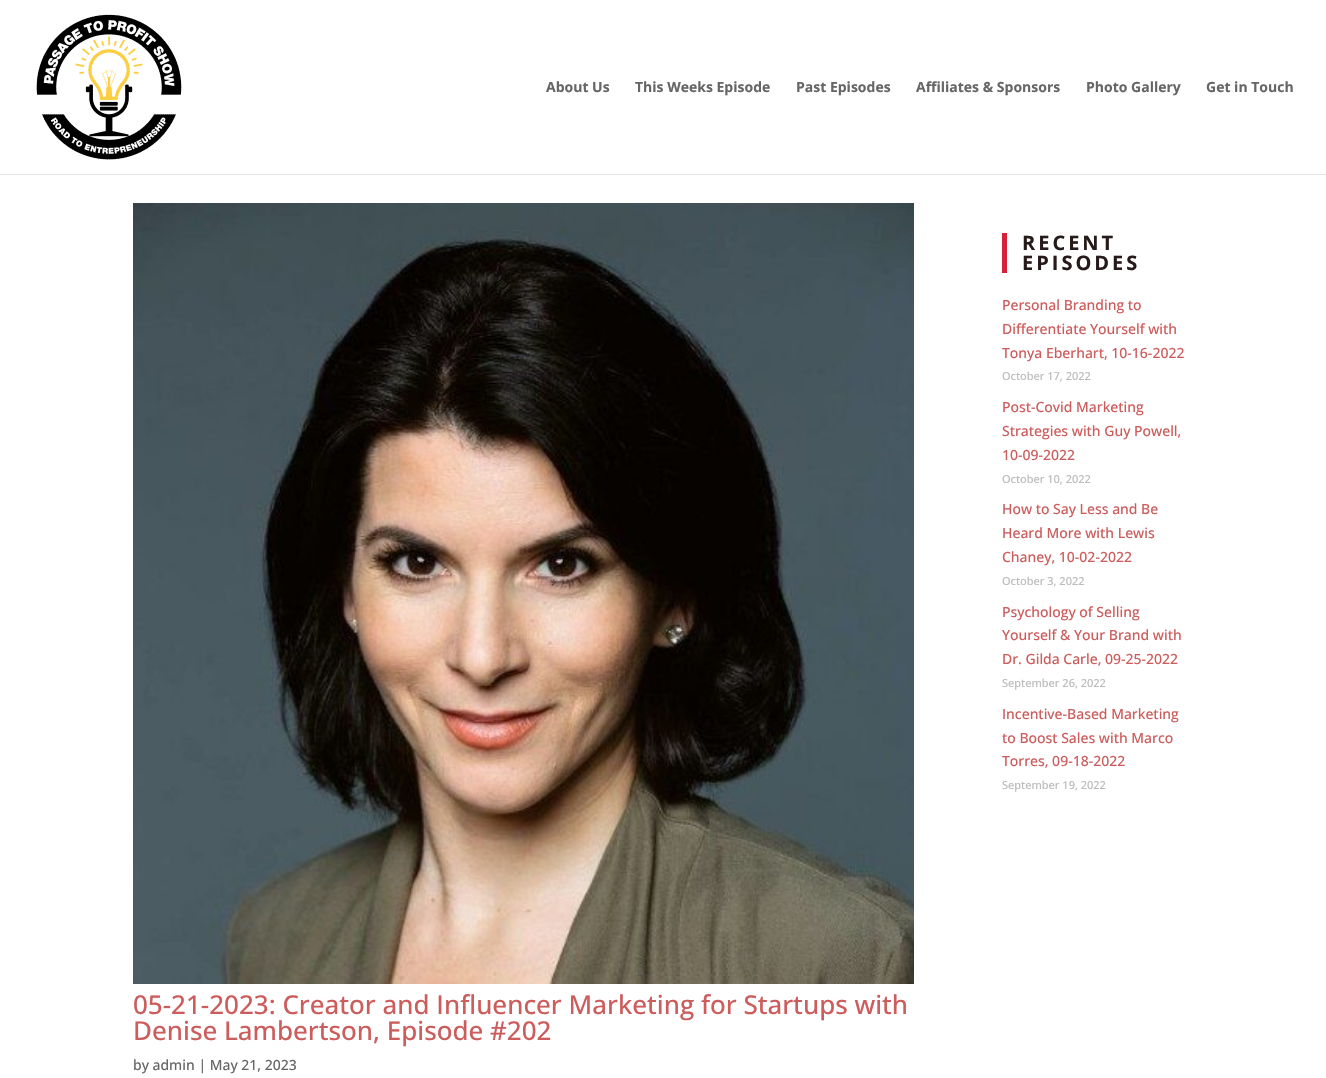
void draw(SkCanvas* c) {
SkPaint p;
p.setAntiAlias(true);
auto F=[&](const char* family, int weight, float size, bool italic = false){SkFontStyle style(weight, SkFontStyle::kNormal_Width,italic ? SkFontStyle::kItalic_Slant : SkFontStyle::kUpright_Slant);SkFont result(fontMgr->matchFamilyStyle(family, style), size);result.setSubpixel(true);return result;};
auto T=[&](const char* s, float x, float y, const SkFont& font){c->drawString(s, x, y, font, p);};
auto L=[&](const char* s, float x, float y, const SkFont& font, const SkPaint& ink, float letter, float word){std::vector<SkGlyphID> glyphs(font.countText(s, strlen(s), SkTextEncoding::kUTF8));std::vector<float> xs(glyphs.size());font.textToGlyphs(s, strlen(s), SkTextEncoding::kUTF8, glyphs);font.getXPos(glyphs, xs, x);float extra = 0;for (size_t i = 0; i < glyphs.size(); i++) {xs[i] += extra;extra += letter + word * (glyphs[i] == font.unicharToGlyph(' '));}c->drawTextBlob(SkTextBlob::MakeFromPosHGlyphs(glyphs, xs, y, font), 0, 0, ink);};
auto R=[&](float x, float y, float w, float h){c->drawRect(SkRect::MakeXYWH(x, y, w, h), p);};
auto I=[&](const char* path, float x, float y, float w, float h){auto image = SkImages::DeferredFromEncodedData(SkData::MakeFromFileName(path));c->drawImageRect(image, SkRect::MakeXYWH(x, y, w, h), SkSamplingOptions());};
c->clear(0xffffffff);
p.setColor(0xffe6e6e6);
R(0,174,1326,1);
I("1.png",36,14,146,146);
auto f1 = F("Open Sans",700,14);
p.setColor(0xff666666);
T("About Us",546,92,f1);
T("This Weeks Episode",635,92,f1);
T("Past Episodes",796,92,f1);
T("Affiliates & Sponsors",916,92,f1);
T("Photo Gallery",1086,92,f1);
T("Get in Touch",1206,92,f1);
p.setColor(0xffd62139);
R(1002,233,5,40);
auto f2 = F("Open Sans",700,20);
p.setColor(0xff261a1a);
L("RECENT",1022,250,f2,p,3,0);
L("EPISODES",1022,270,f2,p,3,0);
auto f3 = F("Open Sans",500,14);
p.setColor(0xffcd5c5c);
T("Personal Branding to",1002,310,f3);
T("Differentiate Yourself with",1002,334,f3);
T("Tonya Eberhart, 10-16-2022",1002,358,f3);
auto f4 = F("Open Sans",500,11);
p.setColor(0xffbbbbbb);
T("October 17, 2022",1002,380,f4);
p.setColor(0xffcd5c5c);
T("Post-Covid Marketing",1002,412,f3);
T("Strategies with Guy Powell,",1002,436,f3);
T("10-09-2022",1002,460,f3);
p.setColor(0xffbbbbbb);
T("October 10, 2022",1002,483,f4);
p.setColor(0xffcd5c5c);
T("How to Say Less and Be",1002,514,f3);
T("Heard More with Lewis",1002,538,f3);
T("Chaney, 10-02-2022",1002,562,f3);
p.setColor(0xffbbbbbb);
T("October 3, 2022",1002,585,f4);
p.setColor(0xffcd5c5c);
T("Psychology of Selling",1002,617,f3);
T("Yourself & Your Brand with",1002,640,f3);
T("Dr. Gilda Carle, 09-25-2022",1002,664,f3);
p.setColor(0xffbbbbbb);
T("September 26, 2022",1002,687,f4);
p.setColor(0xffcd5c5c);
T("Incentive-Based Marketing",1002,719,f3);
T("to Boost Sales with Marco",1002,743,f3);
T("Torres, 09-18-2022",1002,766,f3);
p.setColor(0xffbbbbbb);
T("September 19, 2022",1002,789,f4);
I("2.png",133,203,781,781);
auto f5 = F("Open Sans",500,26);
p.setColor(0xffcd5c5c);
T("05-21-2023: Creator and Influencer Marketing for Startups with",133,1014,f5);
T("Denise Lambertson, Episode #202",133,1040,f5);
p.setColor(0xff666666);
T("by admin | May 21, 2023",133,1070,f3);
}
